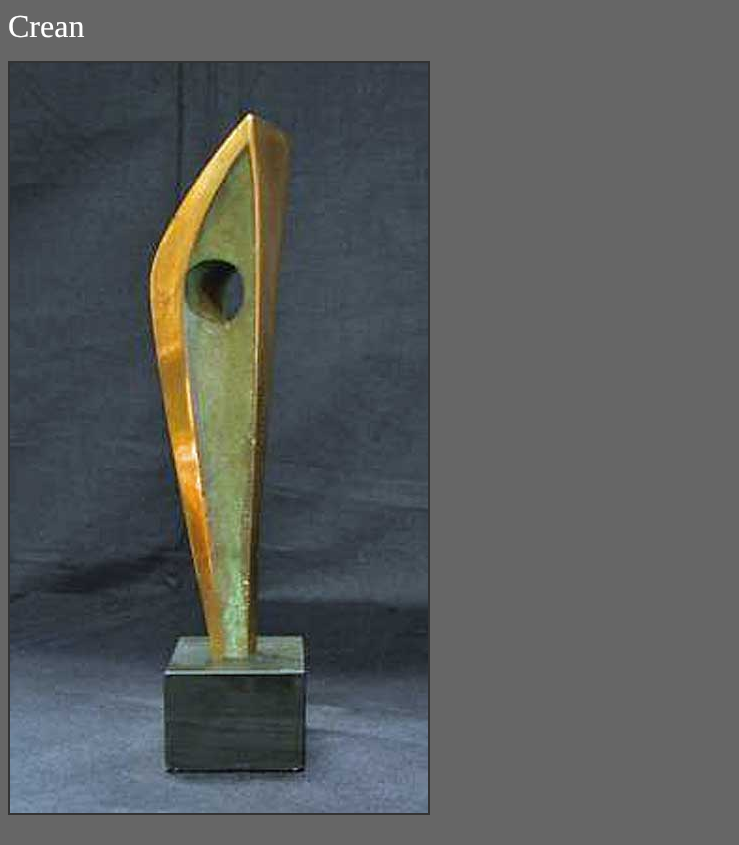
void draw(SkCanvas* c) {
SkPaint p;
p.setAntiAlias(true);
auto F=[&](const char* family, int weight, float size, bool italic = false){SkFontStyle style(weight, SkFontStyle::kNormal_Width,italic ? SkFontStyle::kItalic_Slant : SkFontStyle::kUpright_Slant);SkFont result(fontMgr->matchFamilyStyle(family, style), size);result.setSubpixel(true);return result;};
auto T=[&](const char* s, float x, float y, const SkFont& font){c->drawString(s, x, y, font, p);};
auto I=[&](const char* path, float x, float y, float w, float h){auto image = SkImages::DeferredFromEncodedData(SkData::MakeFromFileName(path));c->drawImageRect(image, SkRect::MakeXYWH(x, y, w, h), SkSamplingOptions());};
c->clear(0xff666666);
auto f1 = F("Liberation Serif",400,32);
p.setColor(0xffffffff);
T("Crean",8,37,f1);
p.setStroke(true);
p.setStrokeWidth(1);
p.setColor(0xff333333);
c->drawRect(SkRect::MakeXYWH(8.5,61.5,421,753),p);
c->drawRect(SkRect::MakeXYWH(9.5,62.5,419,751),p);
I("1.png",10,63,418,750);
}
